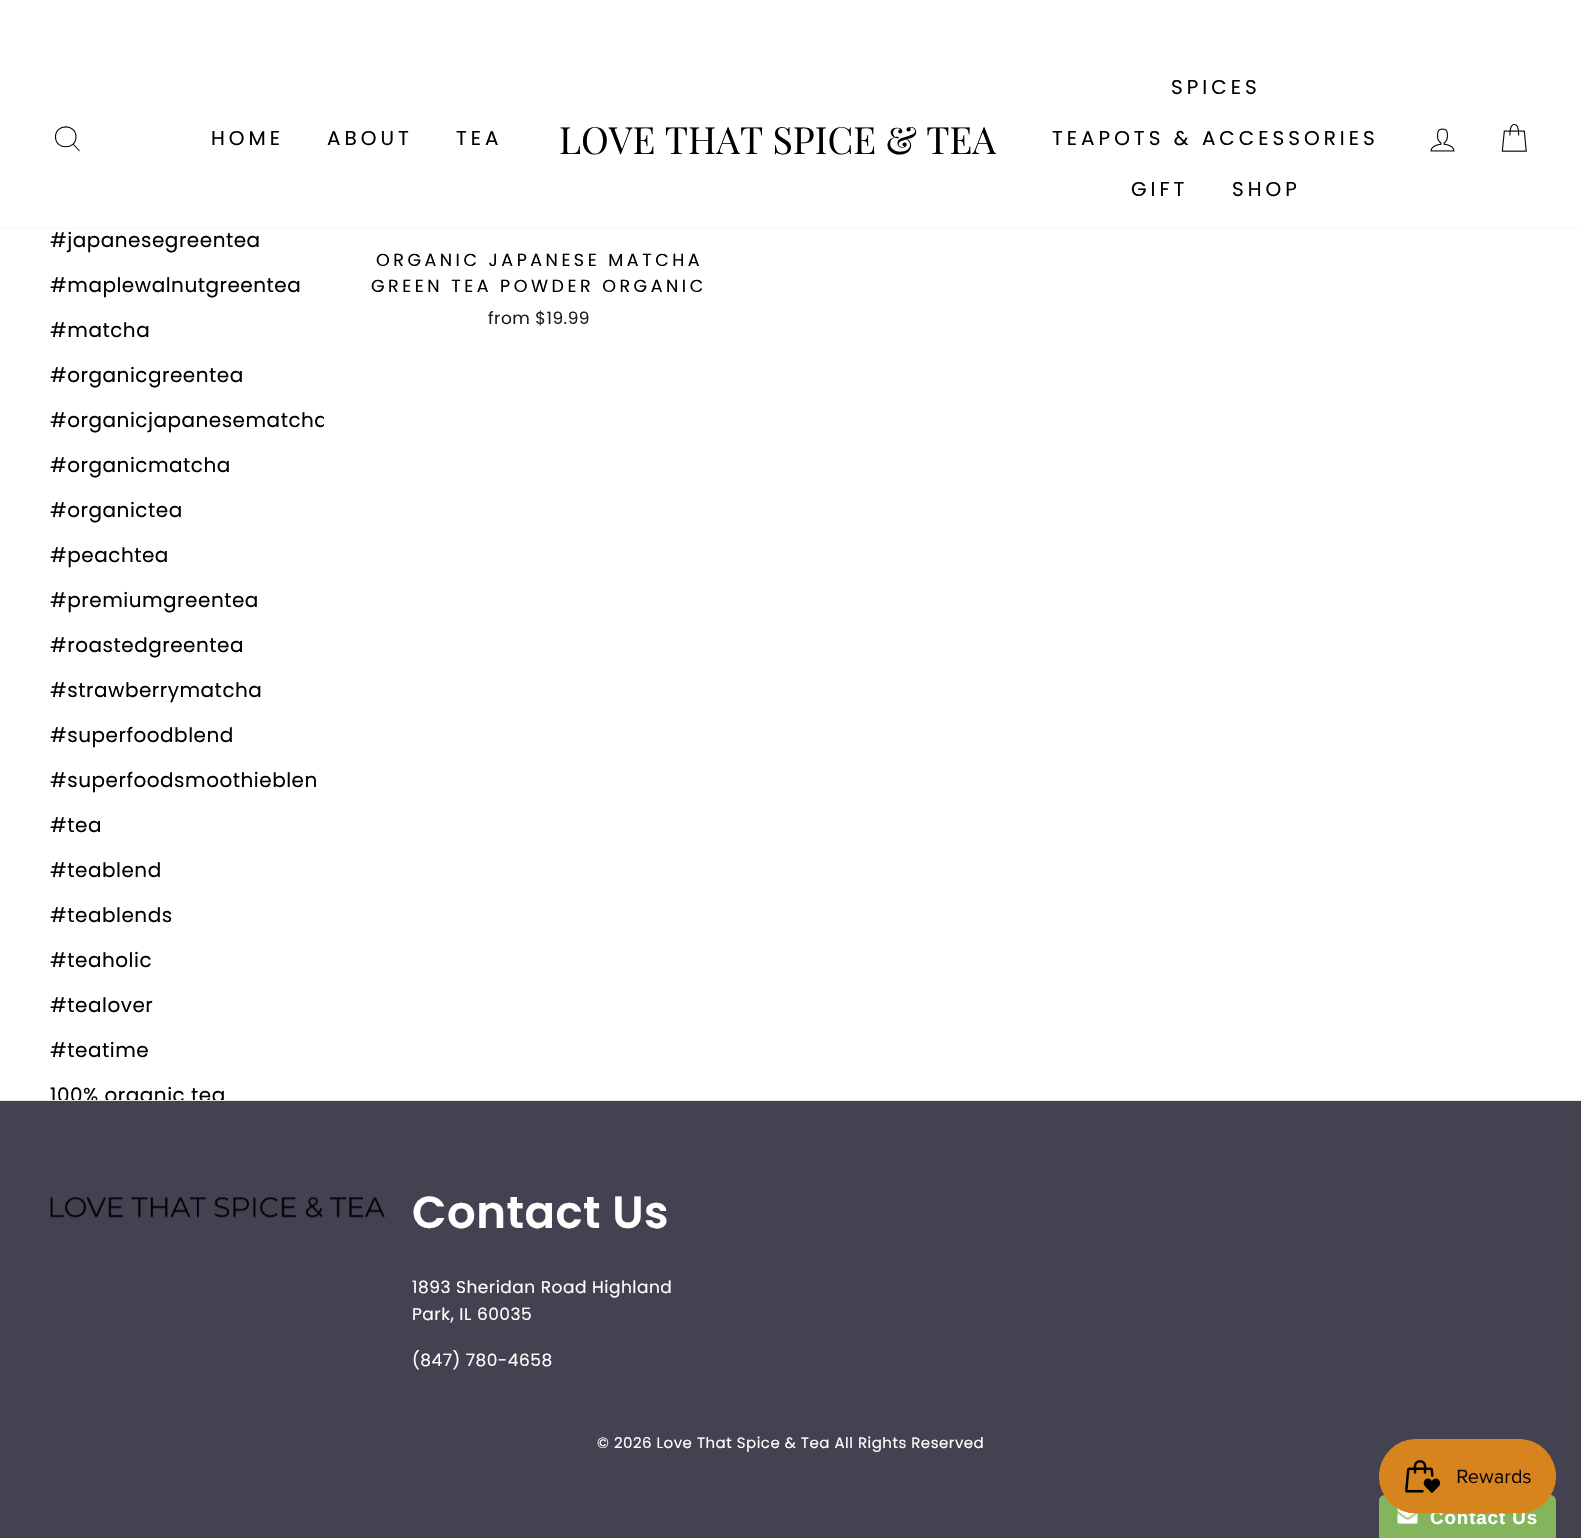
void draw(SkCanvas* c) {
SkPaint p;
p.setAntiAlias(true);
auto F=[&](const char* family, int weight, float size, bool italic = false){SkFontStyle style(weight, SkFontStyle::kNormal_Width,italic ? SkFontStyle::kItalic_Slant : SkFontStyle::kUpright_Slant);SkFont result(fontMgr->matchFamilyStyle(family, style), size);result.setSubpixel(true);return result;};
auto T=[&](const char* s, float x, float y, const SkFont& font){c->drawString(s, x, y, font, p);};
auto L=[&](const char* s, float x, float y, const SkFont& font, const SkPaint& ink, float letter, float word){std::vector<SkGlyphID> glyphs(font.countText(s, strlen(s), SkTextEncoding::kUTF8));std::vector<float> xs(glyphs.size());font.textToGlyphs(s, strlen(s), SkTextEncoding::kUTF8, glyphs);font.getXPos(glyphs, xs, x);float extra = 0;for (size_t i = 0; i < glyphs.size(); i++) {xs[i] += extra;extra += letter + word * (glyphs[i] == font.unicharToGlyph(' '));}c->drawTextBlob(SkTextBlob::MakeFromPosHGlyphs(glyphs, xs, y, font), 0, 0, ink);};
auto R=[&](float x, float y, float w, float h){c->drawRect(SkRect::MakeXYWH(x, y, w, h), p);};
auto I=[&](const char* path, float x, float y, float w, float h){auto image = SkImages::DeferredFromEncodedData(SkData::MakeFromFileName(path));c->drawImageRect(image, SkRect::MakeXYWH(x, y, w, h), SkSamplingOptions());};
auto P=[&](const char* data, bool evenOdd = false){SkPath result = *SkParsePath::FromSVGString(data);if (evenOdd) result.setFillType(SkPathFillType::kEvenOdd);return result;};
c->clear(0xffffffff);
p.setColor(0x33000000);
p.setMaskFilter(SkMaskFilter::MakeBlur(kNormal_SkBlurStyle, .5));
c->drawRect(SkRect::MakeXYWH(0,0,1581,228),p);
p.setMaskFilter(nullptr);
p.setColor(0xffffffff);
R(0,0,1581,228);
p.setStroke(true);
p.setStrokeWidth(1.1);
p.setColor(0xff000000);
c->drawPath(P("M76 137c0 13-20.5 13-20.5 0c0-13.5 20.5-13.5 20.5 0zm3.5 14l-6.5-7"),p);
auto f1 = F("Poppins",400,20);
p.setStroke(false);
L("HOME",211,145,f1,p,4,0);
L("ABOUT",327,145,f1,p,4,0);
L("TEA",456,145,f1,p,4,0);
auto f2 = F("Playfair Display",400,37.5);
T("LOVE THAT SPICE & TEA",559,154,f2);
L("SPICES",1171,94,f1,p,4,0);
L("TEAPOTS & ACCESSORIES",1052,145,f1,p,4,0);
L("GIFT",1131,196,f1,p,4,0);
L("SHOP",1232,196,f1,p,4,0);
I("1.png",1430,128,25,24);
I("2.png",1501,124,26,28);
L("#japanesegreentea",50,247,f1,p,.5,0);
L("#maplewalnutgreentea",50,292,f1,p,.5,0);
L("#matcha",50,337,f1,p,.5,0);
L("#organicgreentea",50,382,f1,p,.5,0);
c->save();
c->clipRect(SkRect::MakeXYWH(23,0,301,1100));
L("#organicjapanesematcha",50,427,f1,p,.5,0);
c->restore();
L("#organicmatcha",50,472,f1,p,.5,0);
L("#organictea",50,517,f1,p,.5,0);
L("#peachtea",50,562,f1,p,.5,0);
L("#premiumgreentea",50,607,f1,p,.5,0);
L("#roastedgreentea",50,652,f1,p,.5,0);
L("#strawberrymatcha",50,697,f1,p,.5,0);
L("#superfoodblend",50,742,f1,p,.5,0);
L("#superfoodsmoothieblen",50,787,f1,p,.5,0);
L("#tea",50,832,f1,p,.5,0);
L("#teablend",50,877,f1,p,.5,0);
L("#teablends",50,922,f1,p,.5,0);
L("#teaholic",50,967,f1,p,.5,0);
L("#tealover",50,1012,f1,p,.5,0);
L("#teatime",50,1057,f1,p,.5,0);
c->save();
c->clipRect(SkRect::MakeXYWH(23,0,301,1100));
L("100% organic tea",50,1102,f1,p,.5,0);
c->restore();
auto f3 = F("Poppins",400,17.5);
L("ORGANIC JAPANESE MATCHA",376,266,f3,p,3.5,0);
L("GREEN TEA POWDER ORGANIC",371,292,f3,p,3.5,0);
auto f4 = F("Poppins",400,17);
p.setColor(0xff1c1d1d);
L("from $19.99",488,324,f4,p,.5,0);
p.setColor(0xff424251);
R(0,1101,1581,437);
p.setColor(0xffe8e8e1);
R(0,1100,1581,1);
I("3.png",50,1197,335,21);
auto f5 = F("Poppins",600,45);
p.setColor(0xffffffff);
L("Contact Us",412,1228,f5,p,.5,0);
L("1893 Sheridan Road Highland",412,1293,f4,p,.5,0);
L("Park, IL 60035",412,1320,f4,p,.5,0);
L("(847) 780-4658",412,1366,f4,p,.5,0);
auto f6 = F("Poppins",400,15);
L("© 2026 Love That Spice & Tea All Rights Reserved",597,1448,f6,p,.5,0);
p.setColor(0xff84b45b);
c->drawPath(P("M1385 1495h165c3.5 0 6 2.5 6 6v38h-177v-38c0-3.5 2.5-6 6-6z"),p);
I("5.png",1397,1508,21,16);
auto f7 = F("Liberation Sans",700,18.75);
p.setColor(0xffffffff);
L("Contact Us",1430,1524,f7,p,.9,0);
I("4.png",1379,1439,177,75);
}
